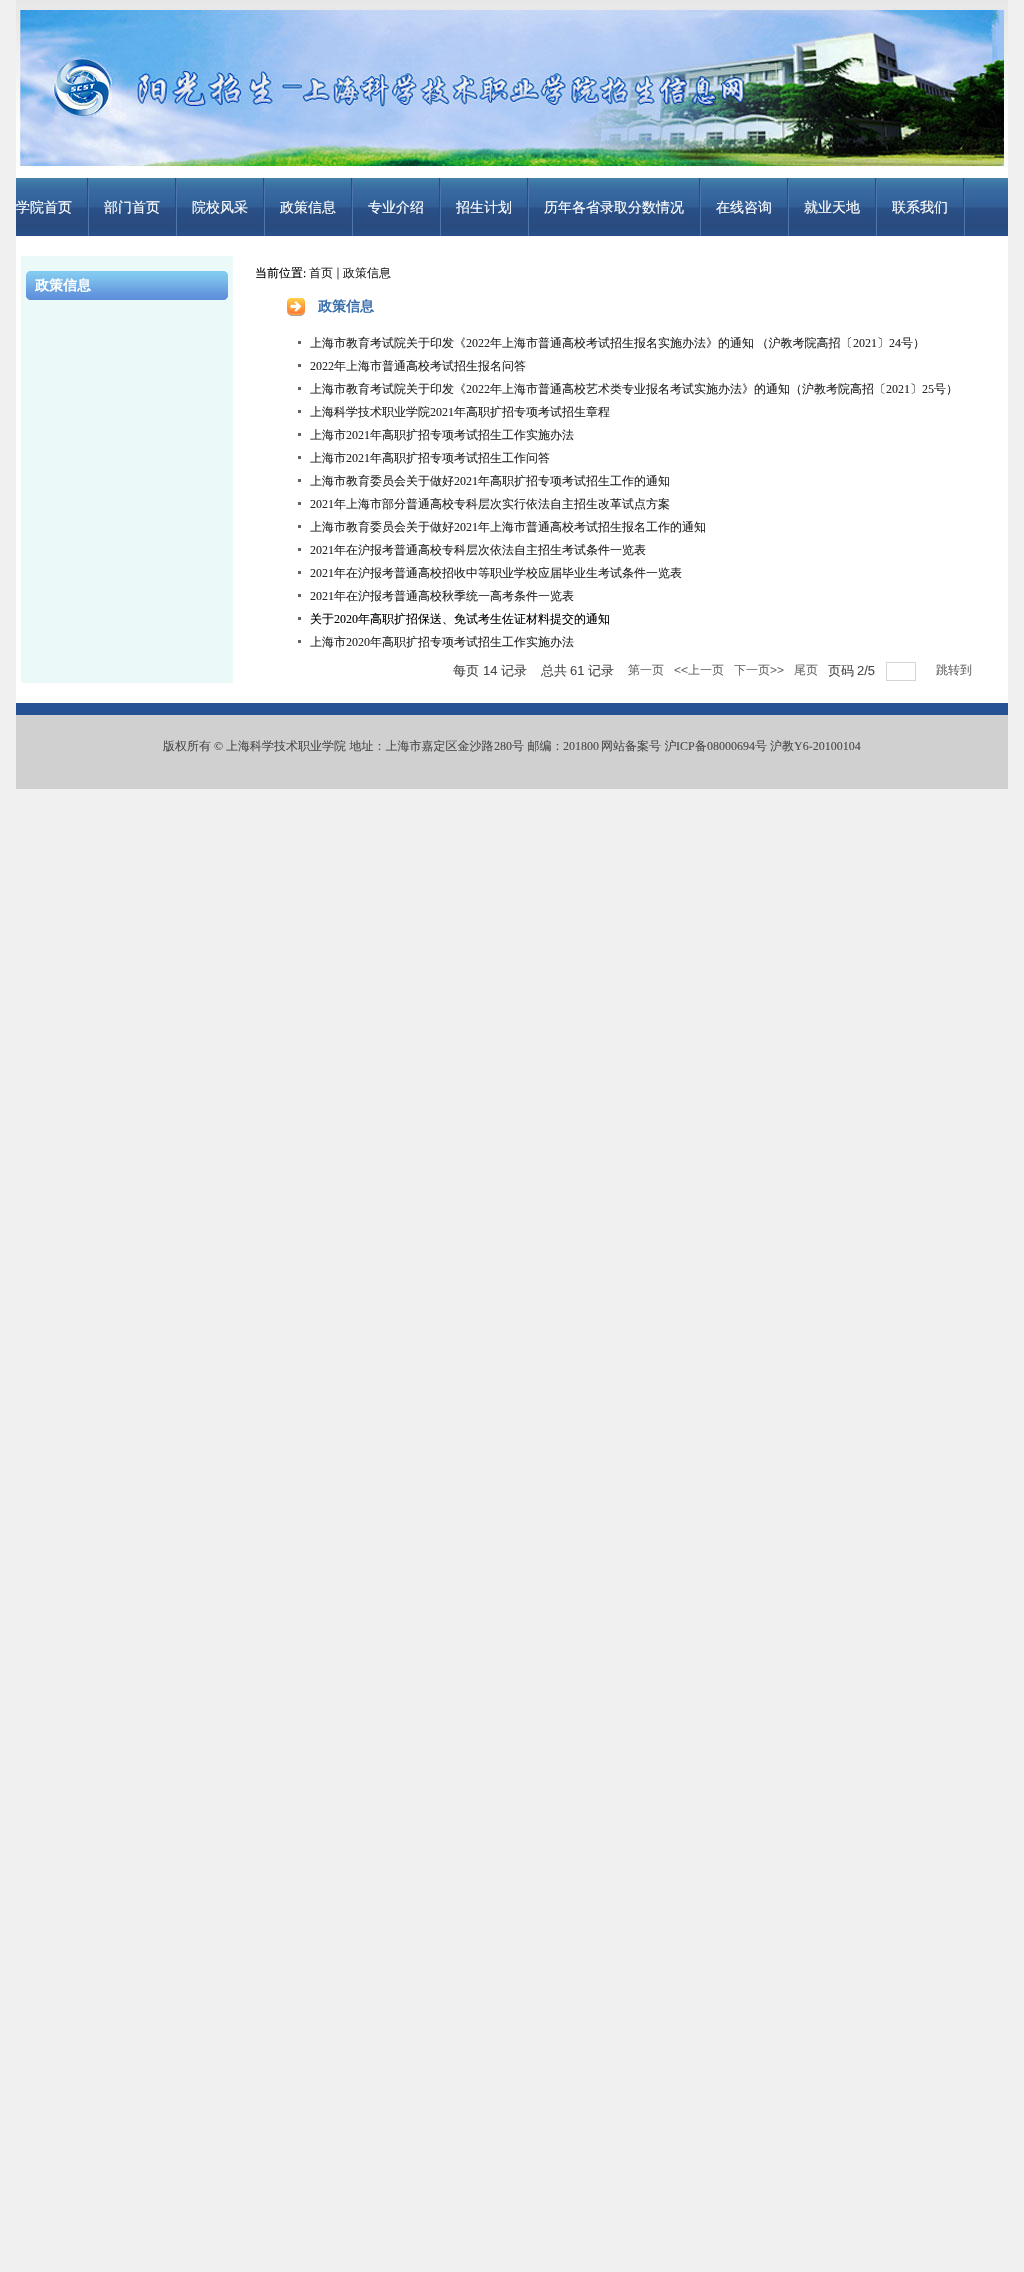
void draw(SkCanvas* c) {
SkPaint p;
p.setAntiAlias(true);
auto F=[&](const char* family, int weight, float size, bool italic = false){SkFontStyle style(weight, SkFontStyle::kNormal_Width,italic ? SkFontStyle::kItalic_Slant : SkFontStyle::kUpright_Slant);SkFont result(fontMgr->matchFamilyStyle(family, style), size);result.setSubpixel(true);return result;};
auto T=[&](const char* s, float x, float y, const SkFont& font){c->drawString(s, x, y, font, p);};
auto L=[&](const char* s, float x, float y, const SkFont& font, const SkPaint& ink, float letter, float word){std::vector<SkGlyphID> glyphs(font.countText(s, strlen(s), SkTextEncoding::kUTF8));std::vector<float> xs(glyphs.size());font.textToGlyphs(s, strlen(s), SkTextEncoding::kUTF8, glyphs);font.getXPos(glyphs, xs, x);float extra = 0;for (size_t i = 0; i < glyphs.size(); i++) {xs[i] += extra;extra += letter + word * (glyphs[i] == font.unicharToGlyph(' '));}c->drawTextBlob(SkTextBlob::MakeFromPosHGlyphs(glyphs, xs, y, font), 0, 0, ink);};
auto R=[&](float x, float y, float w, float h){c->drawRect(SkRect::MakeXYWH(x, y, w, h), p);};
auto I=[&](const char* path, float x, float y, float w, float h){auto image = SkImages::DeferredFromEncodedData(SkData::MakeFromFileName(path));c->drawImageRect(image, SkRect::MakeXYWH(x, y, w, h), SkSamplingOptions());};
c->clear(0xfff0f0f0);
p.setColor(0xffffffff);
R(16,168,992,535);
I("1.png",16,0,992,168);
I("2.png",16,178,992,58);
auto f1 = F("WenQuanYi Zen Hei",500,14);
T("学院首页",16,212,f1);
I("3.png",87,178,2,58);
T("部门首页",104,212,f1);
I("3.png",175,178,2,58);
T("院校风采",192,212,f1);
I("3.png",263,178,2,58);
T("政策信息",280,212,f1);
I("3.png",351,178,2,58);
T("专业介绍",368,212,f1);
I("3.png",439,178,2,58);
T("招生计划",456,212,f1);
I("3.png",527,178,2,58);
T("历年各省录取分数情况",544,212,f1);
I("3.png",699,178,2,58);
T("在线咨询",716,212,f1);
I("3.png",787,178,2,58);
T("就业天地",804,212,f1);
I("3.png",875,178,2,58);
T("联系我们",892,212,f1);
I("3.png",963,178,2,58);
p.setColor(0xffecf9f9);
R(21,256,212,427);
I("4.png",26,271,9,29);
I("5.png",35,271,188,29);
auto f2 = F("WenQuanYi Zen Hei",700,14);
p.setColor(0xffffffff);
T("政策信息",35,290,f2);
I("6.png",223,271,5,29);
auto f3 = F("WenQuanYi Zen Hei",500,12);
p.setColor(0xff000000);
T("当前位置",255,277,f3);
auto f4 = F("Liberation Serif",400,12);
T(":",303,277,f4);
p.setColor(0xff262626);
T("首页",309,277,f3);
I("7.png",337,267,2,13);
T("政策信息",343,277,f3);
I("8.png",287,298,18,18);
p.setColor(0xff356dab);
T("政策信息",318,311,f2);
p.setColor(0xff646464);
R(298,341,3,3);
p.setColor(0xff262626);
T("上海市教育考试院关于印发《",310,347,f3);
T("2022",466,347,f4);
L("年上海市普通高校考试招生报名实施办法》的通知 （沪教考院高招〔",490,347,f3,p,0,-1);
T("2021",853,347,f4);
T("〕",877,347,f3);
T("24",889,347,f4);
T("号）",901,347,f3);
p.setColor(0xff646464);
R(298,364,3,3);
p.setColor(0xff262626);
T("2022",310,370,f4);
T("年上海市普通高校考试招生报名问答",334,370,f3);
p.setColor(0xff646464);
R(298,387,3,3);
p.setColor(0xff262626);
T("上海市教育考试院关于印发《",310,393,f3);
T("2022",466,393,f4);
T("年上海市普通高校艺术类专业报名考试实施办法》的通知（沪教考院高招〔",490,393,f3);
T("2021",886,393,f4);
T("〕",910,393,f3);
T("25",922,393,f4);
T("号）",934,393,f3);
p.setColor(0xff646464);
R(298,410,3,3);
p.setColor(0xff262626);
T("上海科学技术职业学院",310,416,f3);
T("2021",430,416,f4);
T("年高职扩招专项考试招生章程",454,416,f3);
p.setColor(0xff646464);
R(298,433,3,3);
p.setColor(0xff262626);
T("上海市",310,439,f3);
T("2021",346,439,f4);
T("年高职扩招专项考试招生工作实施办法",370,439,f3);
p.setColor(0xff646464);
R(298,456,3,3);
p.setColor(0xff262626);
T("上海市",310,462,f3);
T("2021",346,462,f4);
T("年高职扩招专项考试招生工作问答",370,462,f3);
p.setColor(0xff646464);
R(298,479,3,3);
p.setColor(0xff262626);
T("上海市教育委员会关于做好",310,485,f3);
T("2021",454,485,f4);
T("年高职扩招专项考试招生工作的通知",478,485,f3);
p.setColor(0xff646464);
R(298,502,3,3);
p.setColor(0xff262626);
T("2021",310,508,f4);
T("年上海市部分普通高校专科层次实行依法自主招生改革试点方案",334,508,f3);
p.setColor(0xff646464);
R(298,525,3,3);
p.setColor(0xff262626);
T("上海市教育委员会关于做好",310,531,f3);
T("2021",454,531,f4);
T("年上海市普通高校考试招生报名工作的通知",478,531,f3);
p.setColor(0xff646464);
R(298,548,3,3);
p.setColor(0xff262626);
T("2021",310,554,f4);
T("年在沪报考普通高校专科层次依法自主招生考试条件一览表",334,554,f3);
p.setColor(0xff646464);
R(298,571,3,3);
p.setColor(0xff262626);
T("2021",310,577,f4);
T("年在沪报考普通高校招收中等职业学校应届毕业生考试条件一览表",334,577,f3);
p.setColor(0xff646464);
R(298,594,3,3);
p.setColor(0xff262626);
T("2021",310,600,f4);
T("年在沪报考普通高校秋季统一高考条件一览表",334,600,f3);
p.setColor(0xff646464);
R(298,617,3,3);
p.setColor(0xff000000);
T("关于",310,623,f3);
T("2020",334,623,f4);
T("年高职扩招保送、免试考生佐证材料提交的通知",358,623,f3);
p.setColor(0xff646464);
R(298,640,3,3);
p.setColor(0xff262626);
T("上海市",310,646,f3);
T("2020",346,646,f4);
T("年高职扩招专项考试招生工作实施办法",370,646,f3);
auto f5 = F("WenQuanYi Zen Hei",500,13);
p.setColor(0xff494949);
T("每页",453,675,f5);
auto f6 = F("Liberation Sans",400,13);
T("14",483,675,f6);
T("记录",501,675,f5);
T("总共",541,675,f5);
T("61",570,675,f6);
T("记录",588,675,f5);
p.setColor(0xff666666);
T("第一页",628,674,f3);
auto f7 = F("Liberation Sans",400,12);
T("<<",674,674,f7);
T("上一页",688,674,f3);
T("下一页",734,674,f3);
T(">>",770,674,f7);
T("尾页",794,674,f3);
p.setColor(0xff494949);
T("页码",828,675,f5);
T("2/5",857,675,f6);
p.setStroke(true);
p.setStrokeWidth(1);
p.setColor(0xffd5d5d5);
c->drawRect(SkRect::MakeXYWH(886.5,662.5,29,18),p);
p.setStroke(false);
p.setColor(0xff666666);
T("跳转到",936,674,f3);
I("9.png",16,703,992,86);
p.setColor(0xff494949);
T("版权所有",163,750,f3);
T("©",214,750,f4);
T("上海科学技术职业学院 地址：上海市嘉定区金沙路",226,750,f3);
T("280",494,750,f4);
T("号 邮编：",512,750,f3);
T("201800",563,750,f4);
T("网站备案号 沪",601,750,f3);
T("ICP",676,750,f4);
T("备",695,750,f3);
T("08000694",707,750,f4);
T("号",755,750,f3);
T("沪教",770,750,f3);
T("Y6-20100104",794,750,f4);
}
